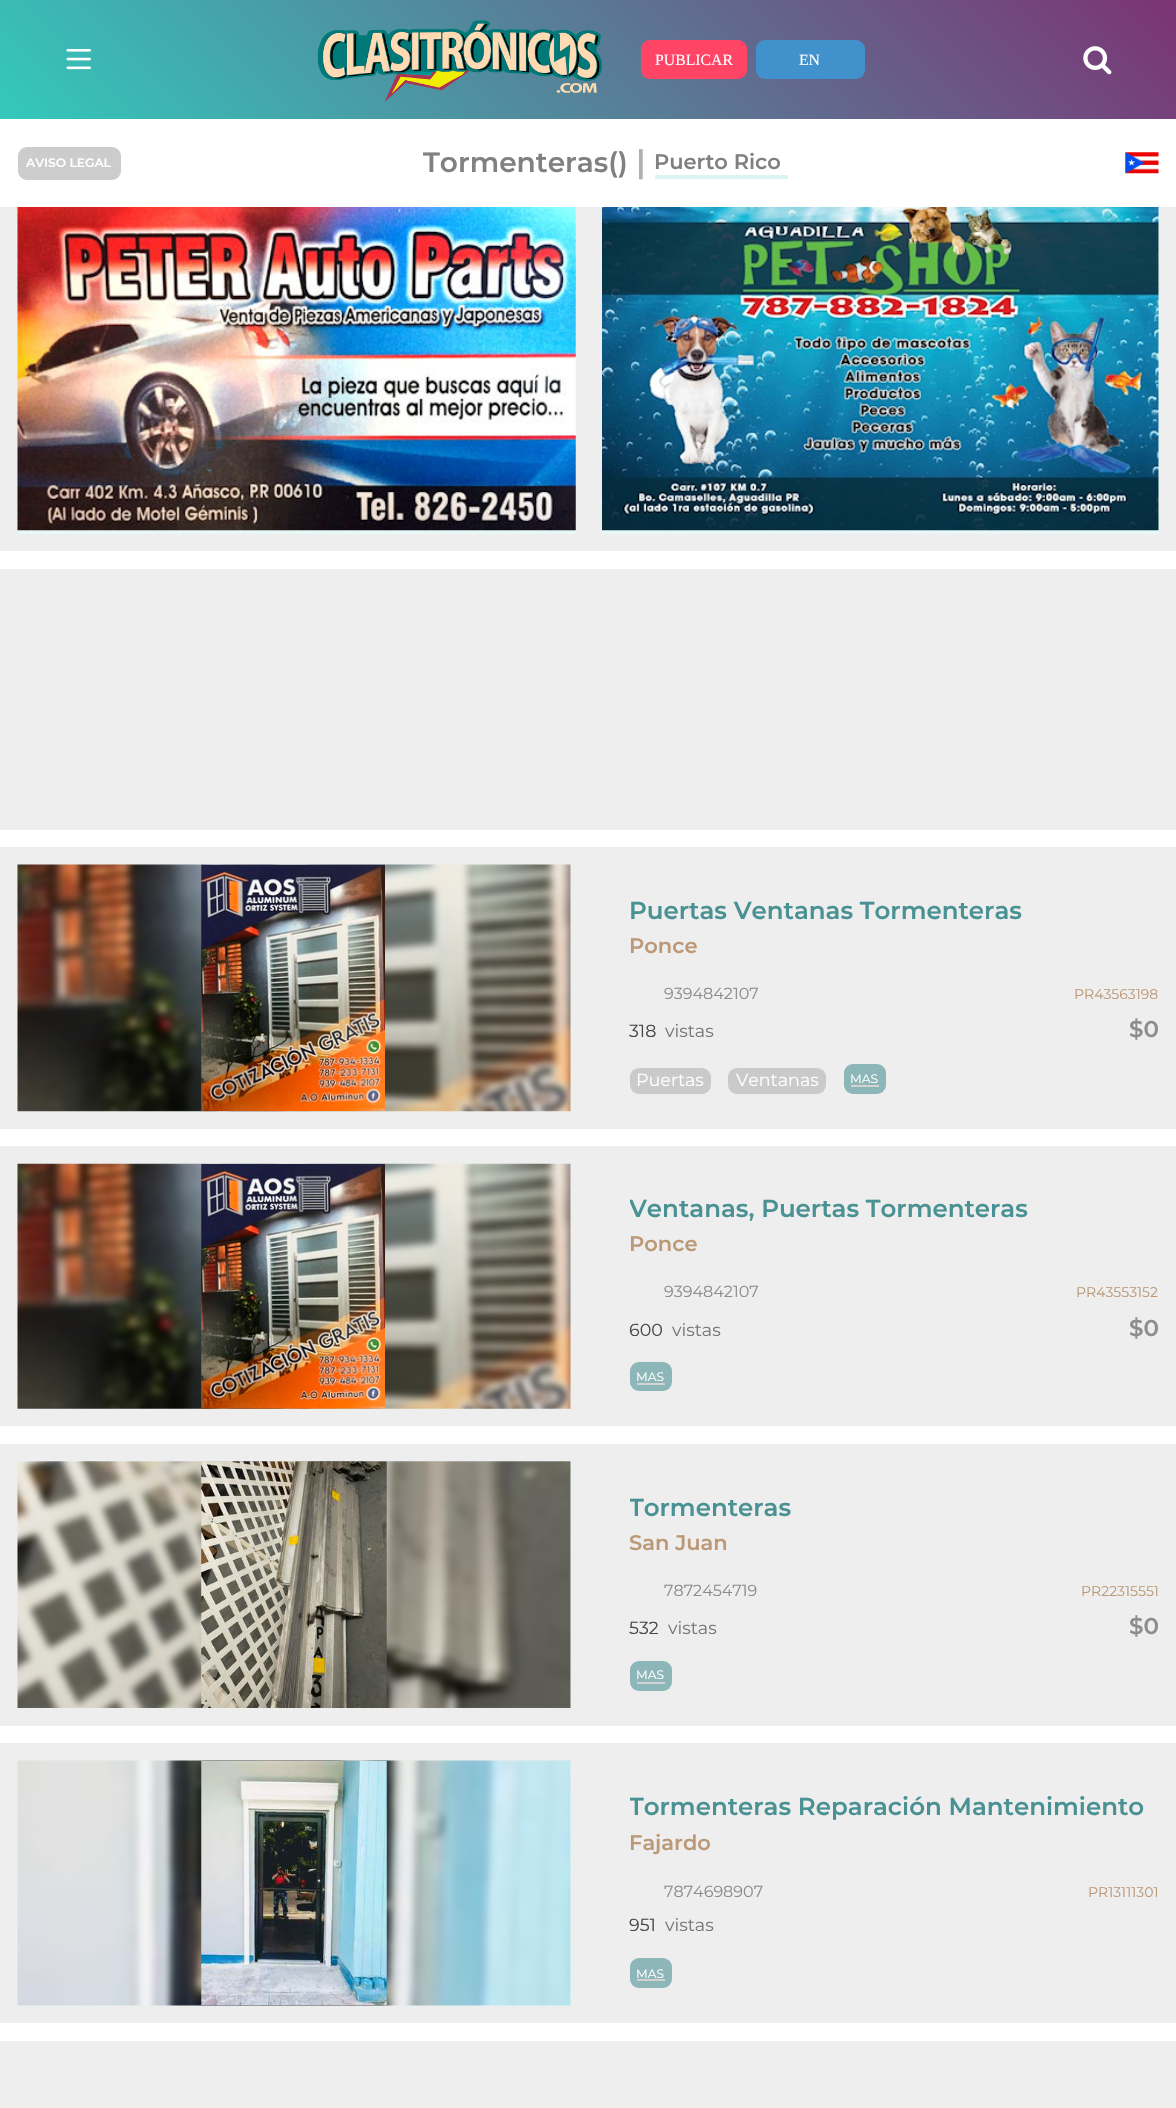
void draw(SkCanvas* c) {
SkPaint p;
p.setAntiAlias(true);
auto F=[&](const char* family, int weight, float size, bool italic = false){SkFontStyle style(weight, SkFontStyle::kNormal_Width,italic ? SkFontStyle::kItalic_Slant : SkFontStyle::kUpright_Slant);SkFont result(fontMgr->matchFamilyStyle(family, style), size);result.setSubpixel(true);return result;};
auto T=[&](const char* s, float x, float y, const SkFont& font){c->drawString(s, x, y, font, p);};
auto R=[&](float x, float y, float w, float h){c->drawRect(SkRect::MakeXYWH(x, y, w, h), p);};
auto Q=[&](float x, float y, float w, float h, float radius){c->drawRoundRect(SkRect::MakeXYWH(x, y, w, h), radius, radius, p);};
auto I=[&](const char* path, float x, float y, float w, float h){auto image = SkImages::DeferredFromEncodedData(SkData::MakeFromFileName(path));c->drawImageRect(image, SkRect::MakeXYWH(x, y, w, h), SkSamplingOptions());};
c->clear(0xffffffff);
{
const SkColor colors[] = {0xff33c9bb,0xff7c3374};
const float stops[] = {0,1};
const SkPoint ends[] = {{264,383}, {912,-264}};
p.setShader(SkGradientShader::MakeLinear(ends, colors, stops, 2, SkTileMode::kClamp));
p.setAlpha(255);
}
R(0,0,1176,119);
I("1.png",66,49,25,21);
I("2.png",317,20,285,82);
p.setShader(nullptr);
p.setColor(0xffff4466);
Q(641,40,106,39,9);
auto f1 = F("Liberation Serif",400,15.75);
p.setColor(0xffffffff);
T("PUBLICAR",655,65,f1);
p.setColor(0xff4191cc);
Q(756,40,109,39,9);
p.setColor(0xffffffff);
T("EN",799,65,f1);
I("3.png",1083,46,29,29);
p.setColor(0xffcccccc);
Q(18,147,103,33,9);
auto f2 = F("Montserrat",600,12.25);
p.setColor(0xffffffff);
T("AVISO LEGAL",26,167,f2);
auto f3 = F("Montserrat",600,28);
p.setColor(0xff808080);
T("Tormenteras()",423,172,f3);
auto f4 = F("Montserrat",600,32);
p.setColor(0xffb0b0b0);
T("|",636,173,f4);
p.setColor(0xffd9f5f2);
R(655,175,133,4);
auto f5 = F("Montserrat",600,21);
p.setColor(0xff808080);
T("Puerto Rico",654,169,f5);
I("4.png",1125,152,34,22);
p.setColor(0xffeeeeee);
R(0,207,1176,344);
p.setColor(0xffe7f8f6);
R(18,207,558,327);
I("5.png",17,207,559,324);
R(602,207,557,327);
I("6.png",602,207,557,324);
p.setColor(0xffeeeeee);
R(0,569,1176,261);
R(0,847,1176,282);
p.setColor(0xffe7f8f6);
R(18,865,553,246);
I("7.png",17,864,554,248);
I("8.png",201,864,184,248);
auto f6 = F("Montserrat",600,24.5);
p.setColor(0xff4a9193);
T("Puertas Ventanas Tormenteras",629,919,f6);
p.setColor(0xffbb9977);
T("Ponce",629,953,f5);
auto f7 = F("Montserrat",400,16);
p.setColor(0xff8e8d8d);
T("9394842107",664,999,f7);
auto f8 = F("Montserrat",400,14);
p.setColor(0xffbb9977);
T("PR43563198",1074,999,f8);
auto f9 = F("Montserrat",400,17.5);
p.setColor(0xff474747);
T("318",629,1037,f9);
p.setColor(0xff777777);
T("vistas",665,1037,f9);
auto f10 = F("Montserrat",600,23);
p.setColor(0xff8e8d8d);
T("$0",1129,1037,f10);
p.setColor(0xffcacaca);
Q(630,1068,81,26,9);
p.setColor(0xffffffff);
T("Puertas",636,1086,f9);
p.setColor(0xffcacaca);
Q(728,1068,98,26,9);
p.setColor(0xffffffff);
T("Ventanas",736,1086,f9);
p.setColor(0xff8cb6b7);
Q(844,1064,42,30,9);
auto f11 = F("Montserrat",400,12.25);
p.setColor(0xffffffff);
T("MAS",850,1083,f11);
p.setColor(0xffd3d3d3);
R(851,1085,28,2);
p.setColor(0xffeeeeee);
R(0,1146,1176,280);
p.setColor(0xffe7f8f6);
R(18,1164,553,245);
I("9.png",17,1163,554,246);
I("10.png",201,1163,184,246);
c->save();
c->clipRect(SkRect::MakeXYWH(630,1194,529,31));
p.setColor(0xff4a9193);
T("Ventanas, Puertas Tormenteras",629,1217,f6);
c->restore();
p.setColor(0xffbb9977);
T("Ponce",629,1251,f5);
p.setColor(0xff8e8d8d);
T("9394842107",664,1297,f7);
p.setColor(0xffbb9977);
T("PR43553152",1076,1297,f8);
p.setColor(0xff474747);
T("600",629,1336,f9);
p.setColor(0xff777777);
T("vistas",672,1336,f9);
p.setColor(0xff8e8d8d);
T("$0",1129,1336,f10);
p.setColor(0xff8cb6b7);
Q(630,1362,42,29,9);
p.setColor(0xffffffff);
T("MAS",636,1381,f11);
p.setColor(0xffd3d3d3);
R(637,1383,28,2);
p.setColor(0xffeeeeee);
R(0,1444,1176,282);
p.setColor(0xffe7f8f6);
R(18,1461,553,247);
I("11.png",17,1461,554,247);
I("12.png",201,1461,186,247);
c->save();
c->clipRect(SkRect::MakeXYWH(630,1491,529,32));
p.setColor(0xff4a9193);
T("Tormenteras",629,1516,f6);
c->restore();
p.setColor(0xffbb9977);
T("San Juan",629,1550,f5);
p.setColor(0xff8e8d8d);
T("7872454719",664,1596,f7);
p.setColor(0xffbb9977);
T("PR22315551",1081,1596,f8);
p.setColor(0xff474747);
T("532",629,1634,f9);
p.setColor(0xff777777);
T("vistas",668,1634,f9);
p.setColor(0xff8e8d8d);
T("$0",1129,1634,f10);
p.setColor(0xff8cb6b7);
Q(630,1661,42,30,9);
p.setColor(0xffffffff);
T("MAS",636,1679,f11);
p.setColor(0xffd3d3d3);
R(637,1682,28,2);
p.setColor(0xffeeeeee);
R(0,1743,1176,280);
p.setColor(0xffe7f8f6);
R(18,1761,553,245);
I("13.png",17,1760,554,246);
I("14.png",201,1760,186,246);
c->save();
c->clipRect(SkRect::MakeXYWH(630,1790,529,32));
p.setColor(0xff4a9193);
T("Tormenteras Reparación Mantenimiento",629,1815,f6);
c->restore();
p.setColor(0xffbb9977);
T("Fajardo",629,1850,f5);
p.setColor(0xff8e8d8d);
T("7874698907",664,1897,f7);
p.setColor(0xffbb9977);
T("PR13111301",1088,1897,f8);
p.setColor(0xff474747);
T("951",629,1931,f9);
p.setColor(0xff777777);
T("vistas",665,1931,f9);
p.setColor(0xff8cb6b7);
Q(630,1958,42,30,9);
p.setColor(0xffffffff);
T("MAS",636,1978,f11);
p.setColor(0xffd3d3d3);
R(637,1979,28,2);
p.setColor(0xffeeeeee);
R(0,2041,1176,67);
}
